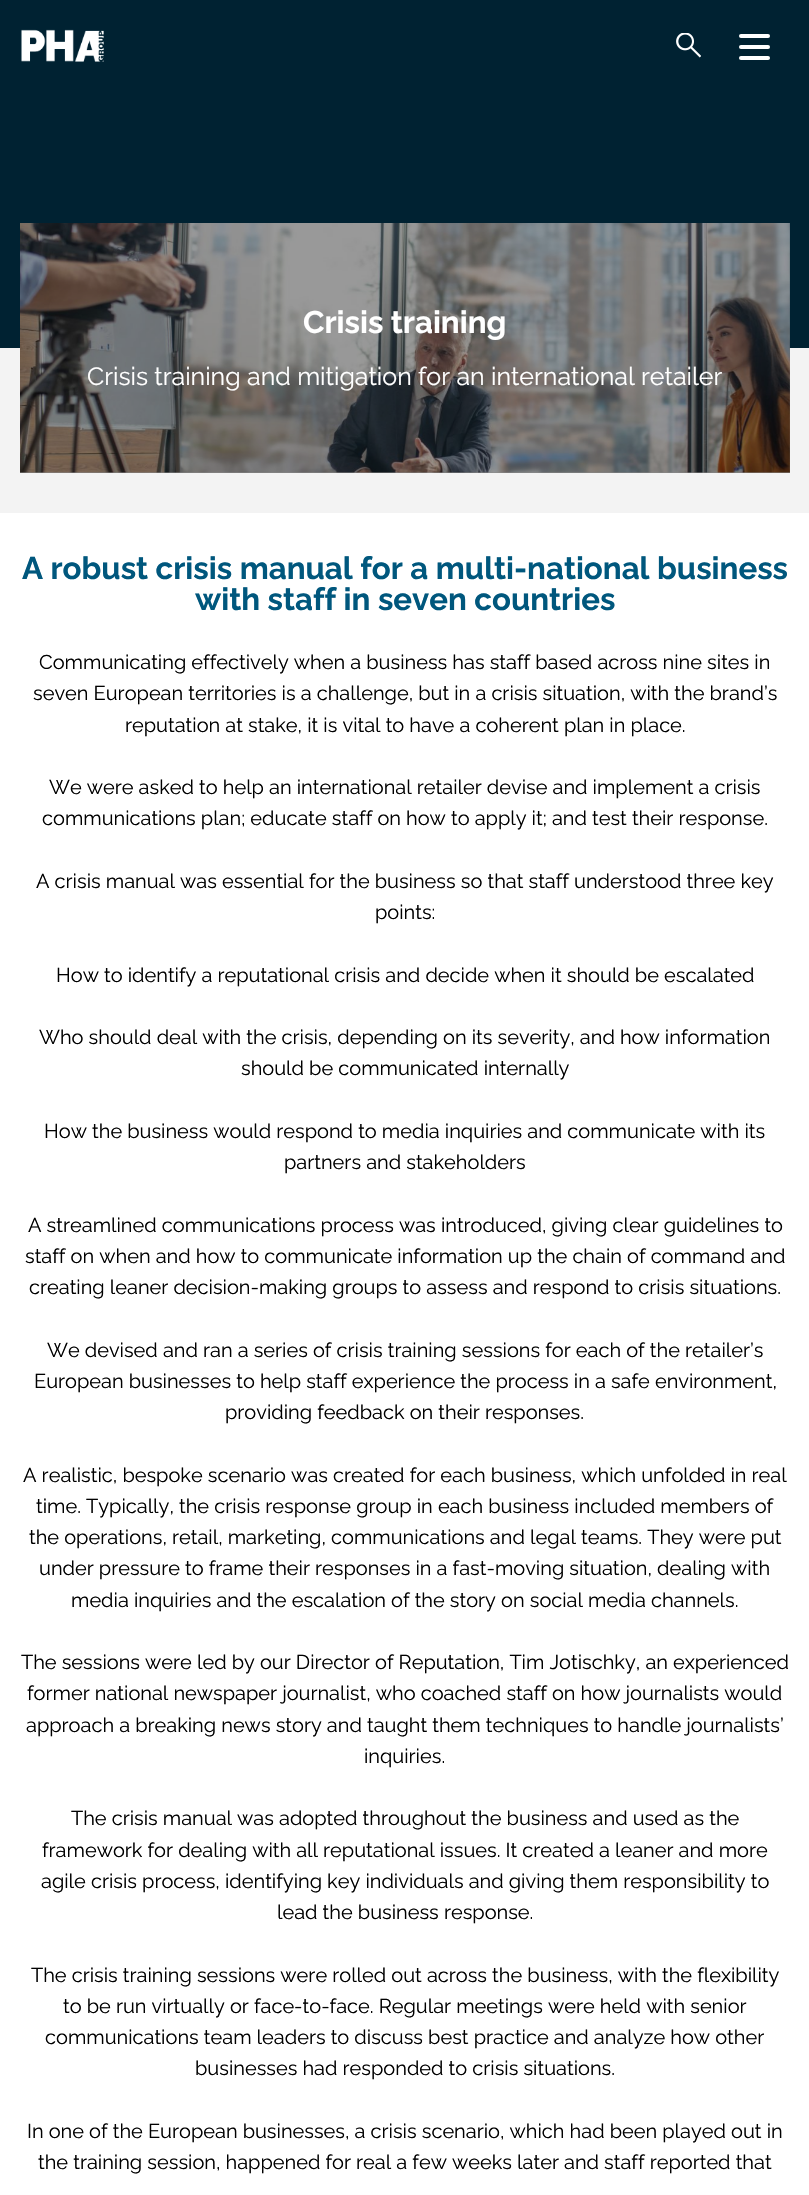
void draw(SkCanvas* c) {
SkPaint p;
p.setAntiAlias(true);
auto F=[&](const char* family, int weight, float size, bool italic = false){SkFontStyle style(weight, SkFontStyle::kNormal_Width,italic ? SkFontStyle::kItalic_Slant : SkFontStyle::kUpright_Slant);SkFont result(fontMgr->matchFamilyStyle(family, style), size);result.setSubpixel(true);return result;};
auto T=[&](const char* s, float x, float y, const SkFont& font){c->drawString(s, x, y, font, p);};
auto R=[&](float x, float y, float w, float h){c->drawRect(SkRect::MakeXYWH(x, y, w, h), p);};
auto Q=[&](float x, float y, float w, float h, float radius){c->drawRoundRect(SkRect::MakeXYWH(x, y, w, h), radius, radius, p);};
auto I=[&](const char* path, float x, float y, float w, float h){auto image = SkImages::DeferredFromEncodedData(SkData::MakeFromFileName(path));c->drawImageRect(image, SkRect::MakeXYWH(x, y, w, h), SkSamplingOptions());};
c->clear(0xffffffff);
p.setColor(0xff002232);
R(0,0,809,348);
I("1.png",21,29,83,33);
I("2.png",676,33,25,25);
p.setColor(0xffffffff);
Q(739,34,31,4,2);
Q(739,45,31,4,2);
Q(739,56,31,4,2);
p.setColor(0xfff3f3f3);
R(0,348,809,165);
p.setColor(0xff888888);
R(20,348,770,125);
I("3.png",20,223,770,250);
auto f1 = F("Raleway",700,31.25);
p.setColor(0xffffffff);
T("Crisis training",303,333,f1);
auto f2 = F("Raleway",400,25);
T("Crisis training and mitigation for an international retailer",87,385,f2);
p.setColor(0xff00577d);
T("A robust crisis manual for a multi-national business",22,579,f1);
T("with staff in seven countries",195,610,f1);
auto f3 = F("Raleway",400,20);
p.setColor(0xff000000);
T("Communicating effectively when a business has staff based across nine sites in",39,669,f3);
T("seven European territories is a challenge, but in a crisis situation, with the brand’s",33,700,f3);
T("reputation at stake, it is vital to have a coherent plan in place.",125,732,f3);
T("We were asked to help an international retailer devise and implement a crisis",49,794,f3);
T("communications plan; educate staff on how to apply it; and test their response.",42,825,f3);
T("A crisis manual was essential for the business so that staff understood three key",36,888,f3);
T("points:",375,919,f3);
T("How to identify a reputational crisis and decide when it should be escalated",56,982,f3);
T("Who should deal with the crisis, depending on its severity, and how information",39,1044,f3);
T("should be communicated internally",241,1075,f3);
T("How the business would respond to media inquiries and communicate with its",44,1138,f3);
T("partners and stakeholders",284,1169,f3);
T("A streamlined communications process was introduced, giving clear guidelines to",28,1232,f3);
T("staff on when and how to communicate information up the chain of command and",25,1263,f3);
T("creating leaner decision-making groups to assess and respond to crisis situations.",29,1294,f3);
T("We devised and ran a series of crisis training sessions for each of the retailer’s",47,1357,f3);
T("European businesses to help staff experience the process in a safe environment,",34,1388,f3);
T("providing feedback on their responses.",225,1419,f3);
T("A realistic, bespoke scenario was created for each business, which unfolded in real",23,1482,f3);
T("time. Typically, the crisis response group in each business included members of",36,1513,f3);
T("the operations, retail, marketing, communications and legal teams. They were put",29,1544,f3);
T("under pressure to frame their responses in a fast-moving situation, dealing with",39,1575,f3);
T("media inquiries and the escalation of the story on social media channels.",71,1607,f3);
T("The sessions were led by our Director of Reputation, Tim Jotischky, an experienced",21,1669,f3);
T("former national newspaper journalist, who coached staff on how journalists would",27,1700,f3);
T("approach a breaking news story and taught them techniques to handle journalists’",26,1732,f3);
T("inquiries.",364,1763,f3);
T("The crisis manual was adopted throughout the business and used as the",71,1825,f3);
T("framework for dealing with all reputational issues. It created a leaner and more",42,1857,f3);
T("agile crisis process, identifying key individuals and giving them responsibility to",41,1888,f3);
T("lead the business response.",277,1919,f3);
T("The crisis training sessions were rolled out across the business, with the flexibility",31,1982,f3);
T("to be run virtually or face-to-face. Regular meetings were held with senior",63,2013,f3);
T("communications team leaders to discuss best practice and analyze how other",45,2044,f3);
T("businesses had responded to crisis situations.",195,2075,f3);
T("In one of the European businesses, a crisis scenario, which had been played out in",27,2138,f3);
T("the training session, happened for real a few weeks later and staff reported that",38,2169,f3);
}
